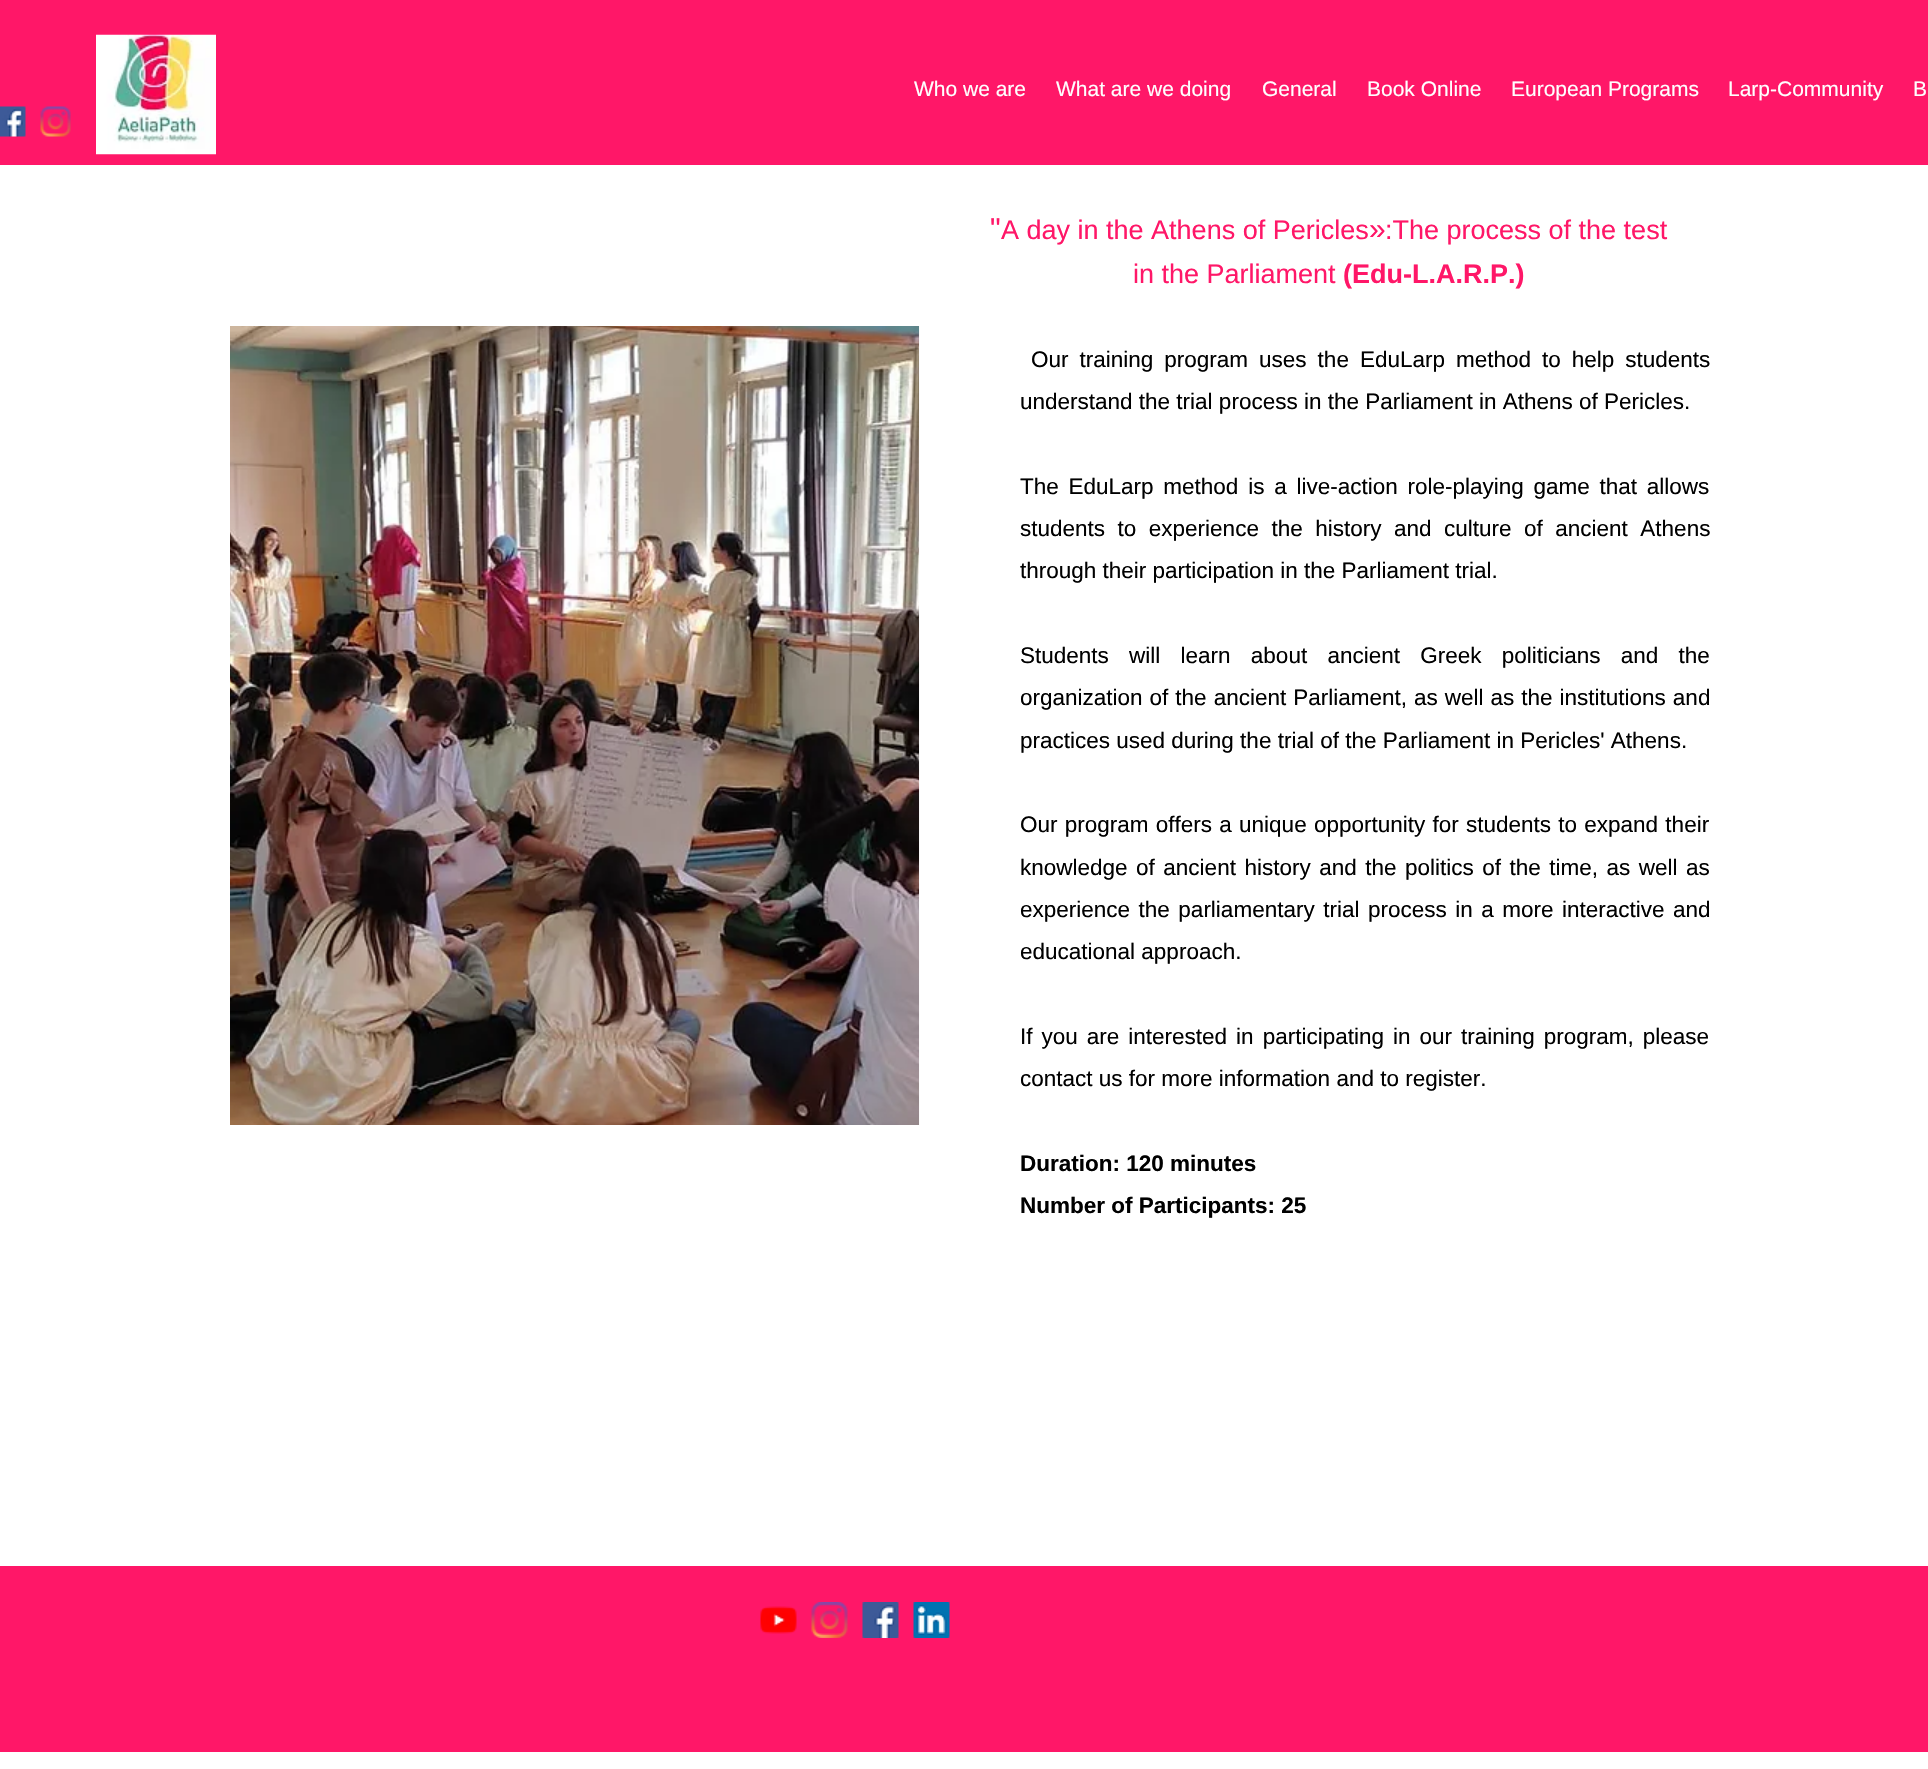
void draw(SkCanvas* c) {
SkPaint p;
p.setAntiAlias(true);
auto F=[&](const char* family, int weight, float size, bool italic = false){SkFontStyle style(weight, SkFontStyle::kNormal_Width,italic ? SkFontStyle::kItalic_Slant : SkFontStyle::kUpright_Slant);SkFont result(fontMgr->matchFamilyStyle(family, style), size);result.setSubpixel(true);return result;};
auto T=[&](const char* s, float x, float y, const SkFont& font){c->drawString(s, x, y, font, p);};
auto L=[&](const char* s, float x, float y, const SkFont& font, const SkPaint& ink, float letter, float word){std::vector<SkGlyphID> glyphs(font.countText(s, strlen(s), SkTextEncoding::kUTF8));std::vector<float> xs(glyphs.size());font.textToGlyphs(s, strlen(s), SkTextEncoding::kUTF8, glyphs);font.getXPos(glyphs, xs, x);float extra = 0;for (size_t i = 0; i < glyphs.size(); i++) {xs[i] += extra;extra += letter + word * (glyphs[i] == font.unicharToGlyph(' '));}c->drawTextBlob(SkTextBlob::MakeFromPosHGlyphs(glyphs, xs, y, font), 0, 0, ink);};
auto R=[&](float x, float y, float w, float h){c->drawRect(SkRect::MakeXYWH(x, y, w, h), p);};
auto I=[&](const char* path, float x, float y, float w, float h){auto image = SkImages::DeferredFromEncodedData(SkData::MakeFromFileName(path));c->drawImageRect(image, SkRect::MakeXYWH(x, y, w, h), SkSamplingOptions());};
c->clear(0xffffffff);
p.setColor(0xffff1768);
R(0,0,1928,165);
I("1.png",96,34,120,121);
auto f1 = F("Liberation Sans",400,21);
p.setColor(0xffffffff);
T("Who we are",914,96,f1);
T("What are we doing",1056,96,f1);
T("General",1262,96,f1);
T("Book Online",1367,96,f1);
T("European Programs",1511,96,f1);
T("Larp-Community",1728,96,f1);
T("B",1913,96,f1);
I("2.png",0,106,26,31);
I("3.png",40,106,31,31);
auto f2 = F("Liberation Sans",400,30);
p.setColor(0xffff1768);
T("\"",990,239,f2);
auto f3 = F("Liberation Sans",400,27);
T("A day in the Athens of Pericles",1001,239,f3);
T("»",1369,239,f2);
T(":The process of the test",1385,239,f3);
T("in the Parliament",1133,283,f3);
auto f4 = F("Liberation Sans",700,27);
T("(Edu-L.A.R.P.)",1343,283,f4);
I("4.png",230,326,690,799);
auto f5 = F("Liberation Sans",400,22.5);
p.setColor(0xff000000);
L("Our training program uses the EduLarp method to help students",1031,367,f5,p,0,4.75);
T("understand the trial process in the Parliament in Athens of Pericles.",1020,409,f5);
L("The EduLarp method is a live-action role-playing game that allows",1020,494,f5,p,0,3.5);
L("students to experience the history and culture of ancient Athens",1020,536,f5,p,0,6.25);
T("through their participation in the Parliament trial.",1020,578,f5);
L("Students will learn about ancient Greek politicians and the",1020,663,f5,p,0,14);
L("organization of the ancient Parliament, as well as the institutions and",1020,705,f5,p,0,.75);
T("practices used during the trial of the Parliament in Pericles' Athens.",1020,748,f5);
L("Our program offers a unique opportunity for students to expand their",1020,832,f5,p,0,1);
L("knowledge of ancient history and the politics of the time, as well as",1020,875,f5,p,0,2.25);
L("experience the parliamentary trial process in a more interactive and",1020,917,f5,p,0,2.25);
T("educational approach.",1020,959,f5);
L("If you are interested in participating in our training program, please",1020,1044,f5,p,0,2.75);
T("contact us for more information and to register.",1020,1086,f5);
auto f6 = F("Liberation Sans",700,22.5);
T("Duration: 120 minutes",1020,1171,f6);
T("Number of Participants: 25",1020,1213,f6);
p.setColor(0xffff1768);
R(0,1566,1928,186);
I("5.png",760,1606,37,28);
I("6.png",811,1602,37,36);
I("7.png",862,1602,37,36);
I("8.png",913,1602,37,36);
}
